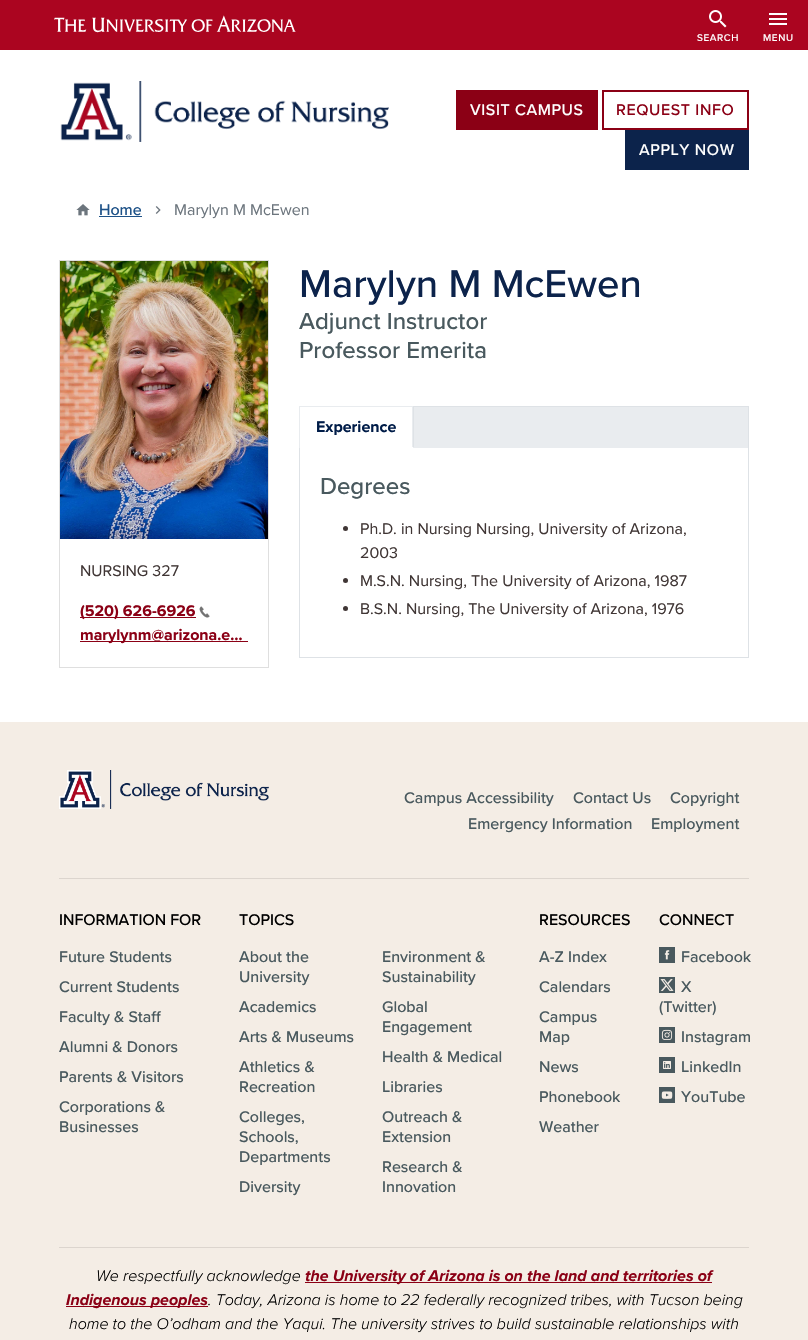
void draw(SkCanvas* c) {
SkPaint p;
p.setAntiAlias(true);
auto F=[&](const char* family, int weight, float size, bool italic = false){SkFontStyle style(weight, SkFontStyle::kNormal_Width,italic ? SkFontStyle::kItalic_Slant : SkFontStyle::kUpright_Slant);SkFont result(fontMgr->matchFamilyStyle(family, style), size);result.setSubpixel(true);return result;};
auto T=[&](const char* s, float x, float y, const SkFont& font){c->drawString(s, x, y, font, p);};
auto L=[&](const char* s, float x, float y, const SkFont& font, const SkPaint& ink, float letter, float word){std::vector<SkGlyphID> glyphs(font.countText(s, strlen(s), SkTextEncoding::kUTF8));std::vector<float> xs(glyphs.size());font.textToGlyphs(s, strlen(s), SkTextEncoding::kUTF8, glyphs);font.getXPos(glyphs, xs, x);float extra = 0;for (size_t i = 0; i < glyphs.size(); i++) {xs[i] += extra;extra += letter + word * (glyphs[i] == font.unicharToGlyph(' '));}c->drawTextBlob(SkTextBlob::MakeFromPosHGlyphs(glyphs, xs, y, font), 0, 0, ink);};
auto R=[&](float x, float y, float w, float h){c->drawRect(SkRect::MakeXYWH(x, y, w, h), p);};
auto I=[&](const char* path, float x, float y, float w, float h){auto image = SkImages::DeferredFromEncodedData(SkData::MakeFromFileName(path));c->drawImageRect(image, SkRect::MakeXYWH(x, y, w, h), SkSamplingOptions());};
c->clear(0xffffffff);
p.setColor(0xffab0520);
R(0,0,808,50);
I("1.png",54,15,242,18);
I("2.png",709,10,18,18);
auto f1 = F("Proxima Nova",500,10);
p.setColor(0xffffffff);
L("SEARCH",697,41,f1,p,.6,0);
I("3.png",769,13,18,12);
L("MENU",763,41,f1,p,.6,0);
I("4.png",60,81,329,61);
p.setColor(0xff8b0015);
R(456,90,142,40);
auto f2 = F("Proxima Nova",500,16);
p.setColor(0xffffffff);
L("VISIT CAMPUS",470,115,f2,p,.6,0);
p.setStroke(true);
p.setStrokeWidth(2);
p.setColor(0xff8b0015);
c->drawRect(SkRect::MakeXYWH(603,91,145,38),p);
p.setStroke(false);
L("REQUEST INFO",616,115,f2,p,.6,0);
p.setColor(0xff0c234b);
R(625,130,124,40);
p.setColor(0xffffffff);
L("APPLY NOW",639,155,f2,p,.6,0);
I("5.png",76,204,14,12);
p.setColor(0xff1e5288);
T("Home",99,215,f2);
R(99,216,43,1);
I("6.png",155,206,6,8);
auto f3 = F("Proxima Nova",400,16);
p.setColor(0xff6c757d);
T("Marylyn M McEwen",174,215,f3);
auto f4 = F("Proxima Nova",500,40);
p.setColor(0xff0c234b);
T("Marylyn M McEwen",299,297,f4);
auto f5 = F("Proxima Nova",500,24);
p.setColor(0xff49595e);
T("Adjunct Instructor",299,329,f5);
T("Professor Emerita",299,358,f5);
p.setStroke(true);
p.setStrokeWidth(1);
p.setColor(0xffdfdfdf);
c->drawRect(SkRect::MakeXYWH(59.5,260.5,209,407),p);
I("7.png",60,261,208,278);
p.setStroke(false);
p.setColor(0xff403635);
T("NURSING 327",80,576,f3);
p.setColor(0xff8b0015);
R(80,617,116,1);
auto f6 = F("Proxima Nova",700,16);
T("(520) 626-6926",80,616,f6);
I("8.png",199,606,11,12);
R(80,641,168,1);
T("marylynm@arizona.e…",80,640,f6);
p.setStroke(true);
p.setColor(0xffdee2e6);
c->drawRect(SkRect::MakeXYWH(299.5,406.5,449,251),p);
p.setStroke(false);
p.setColor(0xffe9ecef);
R(413,407,335,41);
p.setColor(0xffdee2e6);
R(413,406,1,41);
p.setColor(0xffe9ecef);
R(299,406,114,1);
R(412,406,1,42);
p.setColor(0xffffffff);
R(299,447,114,1);
p.setColor(0xffe9ecef);
R(299,406,1,42);
p.setColor(0xff001c48);
T("Experience",316,432,f6);
p.setColor(0xff49595e);
T("Degrees",320,494,f5);
p.setColor(0xff403635);
c->drawCircle(345.5,528.5,2.5,p);
T("Ph.D. in Nursing Nursing, University of Arizona,",360,534,f3);
T("2003",360,558,f3);
c->drawCircle(345.5,580.5,2.5,p);
T("M.S.N. Nursing, The University of Arizona, 1987",360,586,f3);
c->drawCircle(345.5,608.5,2.5,p);
T("B.S.N. Nursing, The University of Arizona, 1976",360,614,f3);
p.setColor(0xfff4ede5);
R(0,722,808,618);
I("9.png",59,770,210,39);
p.setColor(0xff49595e);
T("Campus Accessibility",404,803,f2);
T("Contact Us",573,803,f2);
T("Copyright",670,803,f2);
T("Emergency Information",468,829,f2);
T("Employment",651,829,f2);
p.setColor(0xffdcd5ce);
R(59,878,690,1);
p.setColor(0xff000000);
T("INFORMATION FOR",59,925,f2);
p.setColor(0xff49595e);
T("Future Students",59,962,f2);
T("Current Students",59,992,f2);
T("Faculty & Staff",59,1022,f2);
T("Alumni & Donors",59,1052,f2);
T("Parents & Visitors",59,1082,f2);
T("Corporations &",59,1112,f2);
T("Businesses",59,1132,f2);
p.setColor(0xff000000);
T("TOPICS",239,925,f2);
p.setColor(0xff49595e);
T("About the",239,962,f2);
T("University",239,982,f2);
T("Environment &",382,962,f2);
T("Sustainability",382,982,f2);
T("Academics",239,1012,f2);
T("Global",382,1012,f2);
T("Engagement",382,1032,f2);
T("Arts & Museums",239,1042,f2);
T("Health & Medical",382,1062,f2);
T("Athletics &",239,1072,f2);
T("Recreation",239,1092,f2);
T("Libraries",382,1092,f2);
T("Colleges,",239,1122,f2);
T("Schools,",239,1142,f2);
T("Departments",239,1162,f2);
T("Outreach &",382,1122,f2);
T("Extension",382,1142,f2);
T("Diversity",239,1192,f2);
T("Research &",382,1172,f2);
T("Innovation",382,1192,f2);
p.setColor(0xff000000);
T("RESOURCES",539,925,f2);
p.setColor(0xff49595e);
T("A-Z Index",539,962,f2);
T("Calendars",539,992,f2);
T("Campus",539,1022,f2);
T("Map",539,1042,f2);
T("News",539,1072,f2);
T("Phonebook",539,1102,f2);
T("Weather",539,1132,f2);
p.setColor(0xff000000);
T("CONNECT",659,925,f2);
I("10.png",659,947,16,16);
p.setColor(0xff49595e);
T("Facebook",681,962,f2);
I("11.png",659,977,16,16);
T("X",681,992,f2);
T("(Twitter)",659,1012,f2);
I("12.png",659,1027,16,16);
T("Instagram",681,1042,f2);
I("13.png",659,1057,16,16);
T("LinkedIn",681,1072,f2);
I("14.png",659,1087,16,16);
T("YouTube",681,1102,f2);
p.setColor(0xffdcd5ce);
R(59,1247,690,1);
auto f7 = F("Proxima Nova",300,16,true);
p.setColor(0xff000000);
T("We respectfully acknowledge",96,1281,f7);
p.setColor(0xff8b0015);
R(305,1282,407,1);
auto f8 = F("Proxima Nova",700,16,true);
T("the University of Arizona is on the land and territories of",305,1281,f8);
R(66,1306,142,1);
T("Indigenous peoples",66,1305,f8);
p.setColor(0xff000000);
T(". Today, Arizona is home to 22 federally recognized tribes, with Tucson being",208,1305,f7);
T("home to the O’odham and the Yaqui. The university strives to build sustainable relationships with",69,1329,f7);
}
